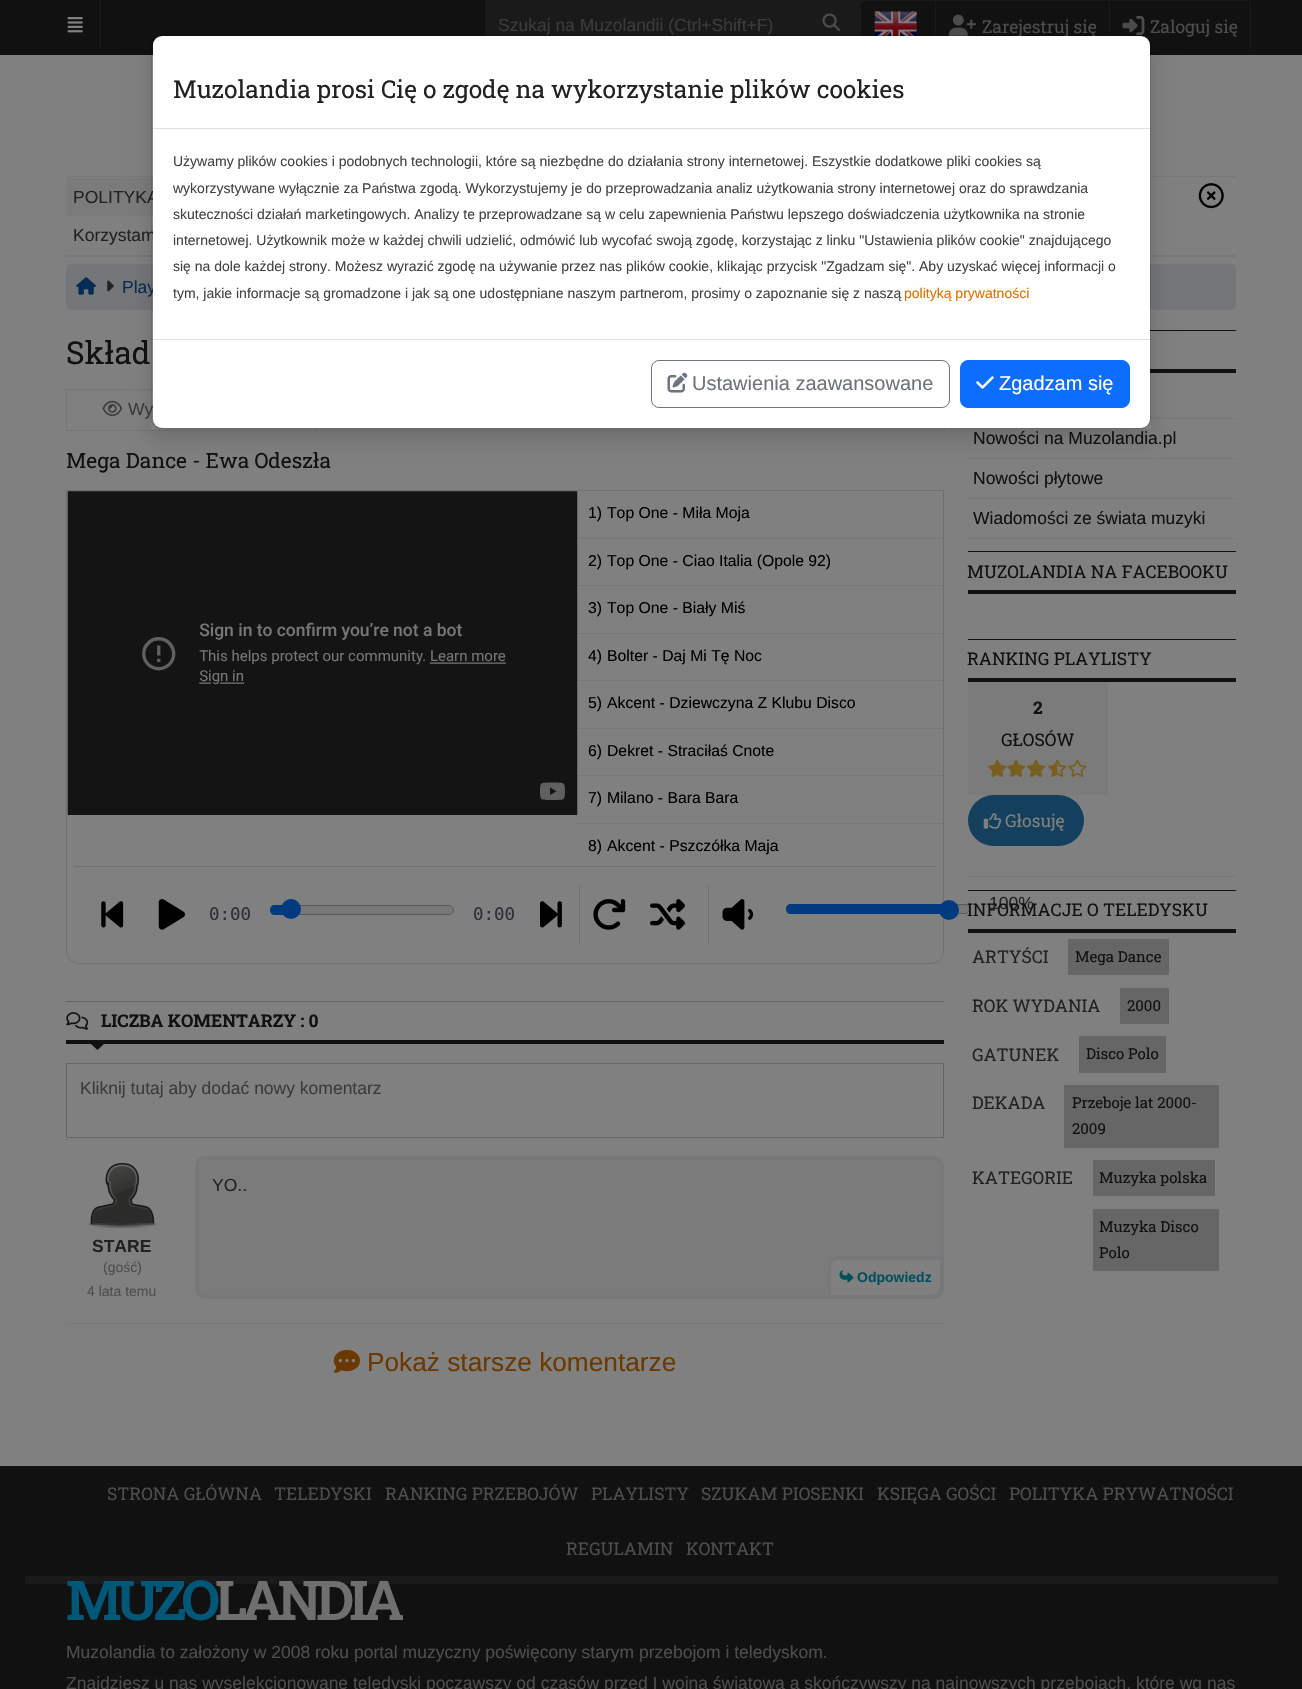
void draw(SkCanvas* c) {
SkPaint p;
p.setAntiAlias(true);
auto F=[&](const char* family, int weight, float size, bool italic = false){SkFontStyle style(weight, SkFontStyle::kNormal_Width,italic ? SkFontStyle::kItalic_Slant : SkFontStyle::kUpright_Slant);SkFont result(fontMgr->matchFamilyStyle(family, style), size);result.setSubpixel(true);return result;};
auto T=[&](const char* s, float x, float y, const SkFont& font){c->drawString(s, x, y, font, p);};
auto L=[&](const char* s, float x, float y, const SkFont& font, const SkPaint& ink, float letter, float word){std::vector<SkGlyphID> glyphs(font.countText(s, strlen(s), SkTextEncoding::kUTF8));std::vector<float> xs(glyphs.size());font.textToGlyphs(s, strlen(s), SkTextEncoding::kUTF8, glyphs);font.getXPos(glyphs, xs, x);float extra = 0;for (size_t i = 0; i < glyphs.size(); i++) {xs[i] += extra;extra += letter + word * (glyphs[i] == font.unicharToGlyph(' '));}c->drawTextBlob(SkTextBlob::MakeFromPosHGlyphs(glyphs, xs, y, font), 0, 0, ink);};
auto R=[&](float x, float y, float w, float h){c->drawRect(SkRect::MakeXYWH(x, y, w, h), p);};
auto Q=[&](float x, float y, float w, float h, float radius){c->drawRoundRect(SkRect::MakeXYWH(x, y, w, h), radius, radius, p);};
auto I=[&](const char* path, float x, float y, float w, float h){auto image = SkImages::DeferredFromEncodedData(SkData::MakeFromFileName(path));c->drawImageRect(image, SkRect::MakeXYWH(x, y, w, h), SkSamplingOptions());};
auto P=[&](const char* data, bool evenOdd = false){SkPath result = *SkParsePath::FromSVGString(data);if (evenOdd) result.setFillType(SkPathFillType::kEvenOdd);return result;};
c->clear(0xff808080);
p.setColor(0xff111111);
R(0,0,1302,55);
p.setColor(0xff1a1a1a);
R(100,0,1,50);
I("1.png",67,17,16,16);
R(485,0,375,36);
auto f1 = F("Liberation Sans",400,17.5);
p.setColor(0xff3b3b3b);
T("Szukaj na Muzolandii (Ctrl+Shift+F)",498,31,f1);
I("2.png",822,13,18,18);
p.setColor(0xff1a1a1a);
R(860,0,391,1);
R(935,1,1,35);
R(860,1,1,35);
I("3.png",874,11,43,25);
R(1109,1,1,35);
I("4.png",948,14,28,22);
auto f2 = F("Roboto Slab",400,17.5);
p.setColor(0xff4d4d4d);
T("Zarejestruj się",982,33,f2);
p.setColor(0xff1a1a1a);
R(1250,1,1,50);
I("5.png",1122,16,23,20);
p.setColor(0xff4d4d4d);
T("Zaloguj się",1150,33,f2);
p.setColor(0xff787878);
R(66,255,1170,2);
R(66,176,1170,1);
p.setColor(0xff7b7b7b);
R(66,178,87,38);
p.setColor(0xff222222);
T("POLITYKA",73,203,f1);
I("6.png",1198,183,26,26);
T("Korzystam",73,241,f1);
p.setColor(0xff757678);
Q(66,264,1170,46,5);
I("7.png",76,277,20,18);
I("8.png",107,280,7,12);
p.setColor(0xff072c53);
T("Play",122,293,f1);
auto f3 = F("Roboto Slab",400,31.5);
p.setColor(0xff111111);
T("Skład",66,364,f3);
p.setColor(0xff777777);
c->drawPath(P("M68 430v1h250v-41h-2v40z"),p);
c->drawPath(P("M66 390v41h250v-1h-250z"),p);
R(66,389,87,1);
R(66,389,1,41);
I("9.png",102,400,21,17);
p.setColor(0xff3b3b3b);
T("Wy",128,415,f1);
p.setColor(0xff777777);
c->drawPath(P("M318 430v1h212v-41h-1v40z"),p);
c->drawPath(P("M530 430v1h220v-41h-1v40z"),p);
c->drawPath(P("M750 430v1h195v-41h-1v40z"),p);
auto f4 = F("Roboto Slab",400,21);
p.setColor(0xff111111);
T("Mega Dance - Ewa Odeszła",66,468,f4);
p.setStroke(true);
p.setStrokeWidth(1);
p.setColor(0xff6f6f6f);
c->drawPath(P("M66.5 490.5h877v460.5c0 7-5.5 12.5-12.5 12.5h-852c-7 0-12.5-5.5-12.5-12.5z"),p);
I("10.png",67,491,511,324);
p.setStroke(false);
p.setColor(0xff777777);
R(578,538,365,1);
auto f5 = F("Liberation Sans",400,15.75);
p.setColor(0xff000000);
T("1)",588,518,f5);
T("Top One - Miła Moja",607,518,f5);
p.setColor(0xff777777);
R(578,585,365,1);
p.setColor(0xff000000);
T("2)",588,566,f5);
T("Top One - Ciao Italia (Opole 92)",607,566,f5);
p.setColor(0xff777777);
R(578,633,365,1);
p.setColor(0xff000000);
T("3)",588,613,f5);
T("Top One - Biały Miś",607,613,f5);
p.setColor(0xff777777);
R(578,680,365,1);
p.setColor(0xff000000);
T("4)",588,661,f5);
T("Bolter - Daj Mi Tę Noc",607,661,f5);
p.setColor(0xff777777);
R(578,728,365,1);
p.setColor(0xff000000);
T("5)",588,708,f5);
T("Akcent - Dziewczyna Z Klubu Disco",607,708,f5);
p.setColor(0xff777777);
R(578,775,365,1);
p.setColor(0xff000000);
T("6)",588,756,f5);
T("Dekret - Straciłaś Cnote",607,756,f5);
p.setColor(0xff777777);
R(578,823,365,1);
p.setColor(0xff000000);
T("7)",588,803,f5);
T("Milano - Bara Bara",607,803,f5);
T("8)",588,851,f5);
T("Akcent - Pszczółka Maja",607,851,f5);
p.setColor(0xff6f6f6f);
R(74,866,862,1);
R(579,885,1,60);
I("11.png",593,899,33,31);
I("12.png",650,899,35,31);
R(708,885,1,60);
I("13.png",722,899,32,31);
p.setColor(0xff787878);
c->drawRoundRect(SkRect::MakeXYWH(786.5,904.5,183,9),4.5,4.5,p);
p.setStroke(true);
p.setColor(0xff595959);
c->drawRoundRect(SkRect::MakeXYWH(786.5,904.5,183,9),4.5,4.5,p);
p.setStroke(false);
p.setColor(0xff003b80);
c->drawPath(P("M791 904h158v10h-158c-3 0-5-2-5-5c0-3 2-5 5-5z"),p);
c->drawCircle(949,910,10,p);
p.setColor(0xff222222);
T("100%",989,909,f1);
I("14.png",101,901,23,27);
I("15.png",158,899,27,31);
auto f6 = F("DejaVu Sans Mono",400,17.5);
p.setColor(0xff2b3037);
T("0:00",209,920,f6);
p.setColor(0xff787878);
c->drawRoundRect(SkRect::MakeXYWH(270.5,905.5,183,9),4.5,4.5,p);
p.setStroke(true);
p.setColor(0xff595959);
c->drawRoundRect(SkRect::MakeXYWH(270.5,905.5,183,9),4.5,4.5,p);
p.setStroke(false);
p.setColor(0xff003b80);
c->drawPath(P("M275 905h16v10h-16c-3 0-5-2-5-5c0-3 2-5 5-5z"),p);
c->drawCircle(291,909,10,p);
p.setColor(0xff2b3037);
T("0:00",473,920,f6);
I("16.png",540,901,22,27);
p.setColor(0xff666666);
R(66,1001,878,1);
p.setColor(0xff111111);
R(66,1040,878,4);
I("17.png",66,1012,23,18);
auto f7 = F("Roboto Slab",700,17.5);
T("LICZBA KOMENTARZY : 0",101,1027,f7);
c->drawPath(P("M91 1044h13l-6.5 6z"),p);
p.setStroke(true);
p.setColor(0xff666666);
c->drawRect(SkRect::MakeXYWH(66.5,1063.5,877,74),p);
p.setStroke(false);
p.setColor(0xff3b3b3b);
T("Kliknij tutaj aby dodać nowy komentarz",80,1094,f1);
p.setColor(0xff777879);
R(66,1323,878,1);
I("18.png",86,1163,72,66);
auto f8 = F("Liberation Sans",700,17.5);
p.setColor(0xff222222);
T("STARE",92,1252,f8);
auto f9 = F("Liberation Sans",400,14);
p.setColor(0xff4d4d4d);
T("(gość)",103,1272,f9);
T("4 lata temu",87,1296,f9);
p.setColor(0xff7b7b7c);
c->drawRoundRect(SkRect::MakeXYWH(197,1158,745,139),8,8,p);
p.setStroke(true);
p.setStrokeWidth(4);
p.setColor(0xff777879);
c->drawRoundRect(SkRect::MakeXYWH(197,1158,745,139),8,8,p);
p.setStroke(false);
p.setColor(0xff222222);
T("YO..",212,1191,f1);
p.setColor(0xff808080);
c->drawPath(P("M838 1256h102v29c0 5.5-4.5 10-10 10h-102v-29c0-5.5 4.5-10 10-10z"),p);
p.setColor(0xff777879);
c->drawPath(P("M838 1256h102v29c0 6-4 10-10 10h-102v-29c0-5 4-10 10-10zm0 4h102v25c0 6-4 10-10 10h-99v-29c0-3 3-6 7-6z",true),p);
I("19.png",839,1270,15,13);
auto f10 = F("Liberation Sans",700,14);
p.setColor(0xff00505c);
T("Odpowiedz",857,1282,f10);
I("20.png",333,1349,27,24);
auto f11 = F("Liberation Sans",400,26.25);
p.setColor(0xff6b3900);
T("Pokaż starsze komentarze",367,1371,f11);
p.setColor(0xff111111);
R(1150,330,86,1);
R(1150,369,86,4);
p.setColor(0xff787878);
R(1150,418,86,1);
R(968,458,268,1);
p.setColor(0xff111111);
T("Nowości na Muzolandia.pl",973,444,f1);
p.setColor(0xff787878);
R(968,498,268,1);
p.setColor(0xff111111);
T("Nowości płytowe",973,484,f1);
p.setColor(0xff787878);
R(968,538,268,1);
p.setColor(0xff111111);
T("Wiadomości ze świata muzyki",973,524,f1);
R(968,551,268,1);
R(968,590,268,4);
T("MUZOLANDIA NA FACEBOOKU",967,578,f2);
R(968,639,268,1);
R(968,678,268,4);
T("RANKING PLAYLISTY",967,665,f2);
p.setColor(0xff787878);
R(968,876,268,1);
p.setColor(0xff7b7b7b);
R(968,682,140,113);
p.setColor(0xff111111);
T("2",1033,714,f7);
T("GŁOSÓW",1001,746,f2);
I("21.png",988,759,19,19);
I("22.png",1007,759,19,19);
I("22.png",1027,759,19,19);
I("23.png",1048,759,19,19);
I("24.png",1068,759,19,19);
p.setColor(0xff15405d);
Q(968,795,116,51,25.5);
I("25.png",983,813,19,16);
p.setColor(0xff808080);
T("Głosuję",1005,827,f2);
p.setColor(0xff111111);
R(968,890,268,1);
R(968,929,268,4);
T("INFORMACJE O TELEDYSKU",967,916,f2);
p.setColor(0xff222222);
T("ARTYŚCI",972,963,f2);
p.setColor(0xff666666);
R(1068,939,101,36);
auto f12 = F("Roboto Slab",400,15);
p.setColor(0xff111111);
T("Mega Dance",1075,962,f12);
p.setColor(0xff222222);
T("ROK WYDANIA",972,1012,f2);
p.setColor(0xff666666);
R(1120,988,49,36);
p.setColor(0xff111111);
T("2000",1127,1011,f12);
p.setColor(0xff222222);
T("GATUNEK",972,1061,f2);
p.setColor(0xff666666);
R(1079,1036,87,37);
p.setColor(0xff111111);
T("Disco Polo",1086,1059,f12);
p.setColor(0xff222222);
T("DEKADA",972,1109,f2);
p.setColor(0xff666666);
R(1064,1085,155,63);
p.setColor(0xff111111);
T("Przeboje lat 2000-",1072,1108,f12);
T("2009",1072,1134,f12);
p.setColor(0xff222222);
T("KATEGORIE",972,1184,f2);
p.setColor(0xff666666);
R(1093,1160,122,36);
p.setColor(0xff111111);
T("Muzyka polska",1099,1183,f12);
p.setColor(0xff666666);
R(1093,1209,126,62);
p.setColor(0xff111111);
T("Muzyka Disco",1099,1232,f12);
T("Polo",1099,1258,f12);
R(0,1466,1302,223);
p.setColor(0xff1a1a1a);
R(25,1576,1253,8);
p.setColor(0xff4d4d4d);
T("STRONA GŁÓWNA",107,1500,f2);
T("TELEDYSKI",274,1500,f2);
T("RANKING PRZEBOJÓW",385,1500,f2);
T("PLAYLISTY",591,1500,f2);
T("SZUKAM PIOSENKI",701,1500,f2);
T("KSIĘGA GOŚCI",877,1500,f2);
T("POLITYKA PRYWATNOŚCI",1009,1500,f2);
T("REGULAMIN",566,1555,f2);
T("KONTAKT",686,1555,f2);
auto f13 = F("Roboto Slab",700,55);
p.setColor(0xff005778);
L("MUZO",66,1620,f13,p,-5,0);
p.setColor(0xff6f6f6f);
L("LANDIA",215,1620,f13,p,-5,0);
p.setColor(0xff4d4d4d);
T("Muzolandia to założony w 2008 roku portal muzyczny poświęcony starym przebojom i teledyskom.",66,1658,f1);
T("Znajdziesz u nas wyselekcjonowane teledyski począwszy od czasów przed I wojną światową a skończywszy na najnowszych przebojach, które wg nas",66,1689,f1);
c->save();
c->clipPath(P("M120 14h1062v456h-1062zm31 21h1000v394h-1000z",true),true);
p.setColor(0x26000000);
p.setMaskFilter(SkMaskFilter::MakeBlur(kNormal_SkBlurStyle, 10));
c->drawRect(SkRect::MakeXYWH(151,45,1000,394),p);
p.setMaskFilter(nullptr);
c->restore();
p.setColor(0xffffffff);
Q(153,36,997,392,9);
p.setStroke(true);
p.setStrokeWidth(1);
p.setColor(0x2e000000);
c->drawRoundRect(SkRect::MakeXYWH(151.5,35.5,999,393),9.5,9.5,p);
p.setStroke(false);
p.setColor(0xffdee2e6);
R(153,128,997,1);
auto f14 = F("Roboto Slab",400,24.5);
p.setColor(0xff222222);
T("Muzolandia prosi Cię o zgodę na wykorzystanie plików cookies",173,98,f14);
p.setColor(0xff444444);
T("Używamy plików cookies i podobnych technologii, które są niezbędne do działania strony internetowej. Eszystkie dodatkowe pliki cookies są",173,166,f9);
T("wykorzystywane wyłącznie za Państwa zgodą. Wykorzystujemy je do przeprowadzania analiz użytkowania strony internetowej oraz do sprawdzania",173,193,f9);
T("skuteczności działań marketingowych. Analizy te przeprowadzane są w celu zapewnienia Państwu lepszego doświadczenia użytkownika na stronie",173,219,f9);
T("internetowej. Użytkownik może w każdej chwili udzielić, odmówić lub wycofać swoją zgodę, korzystając z linku \"Ustawienia plików cookie\" znajdującego",173,245,f9);
T("się na dole każdej strony. Możesz wyrazić zgodę na używanie przez nas plików cookie, klikając przycisk \"Zgadzam się\". Aby uzyskać więcej informacji o",173,271,f9);
T("tym, jakie informacje są gromadzone i jak są one udostępniane naszym partnerom, prosimy o zapoznanie się z naszą",173,298,f9);
p.setColor(0xffd67200);
T("polityką prywatności",904,298,f9);
p.setColor(0xffdee2e6);
R(153,339,997,1);
p.setStroke(true);
p.setColor(0xff6c757d);
c->drawRoundRect(SkRect::MakeXYWH(651.5,360.5,298,47),7.5,7.5,p);
I("26.png",667,372,21,21);
auto f15 = F("Liberation Sans",400,20);
p.setStroke(false);
T("Ustawienia zaawansowane",692,390,f15);
p.setColor(0xff0d6efd);
c->drawRoundRect(SkRect::MakeXYWH(960.5,360.5,169,47),7.5,7.5,p);
p.setStroke(true);
c->drawRoundRect(SkRect::MakeXYWH(960.5,360.5,169,47),7.5,7.5,p);
I("27.png",976,376,18,13);
p.setStroke(false);
p.setColor(0xffffffff);
T("Zgadzam się",999,390,f15);
}
